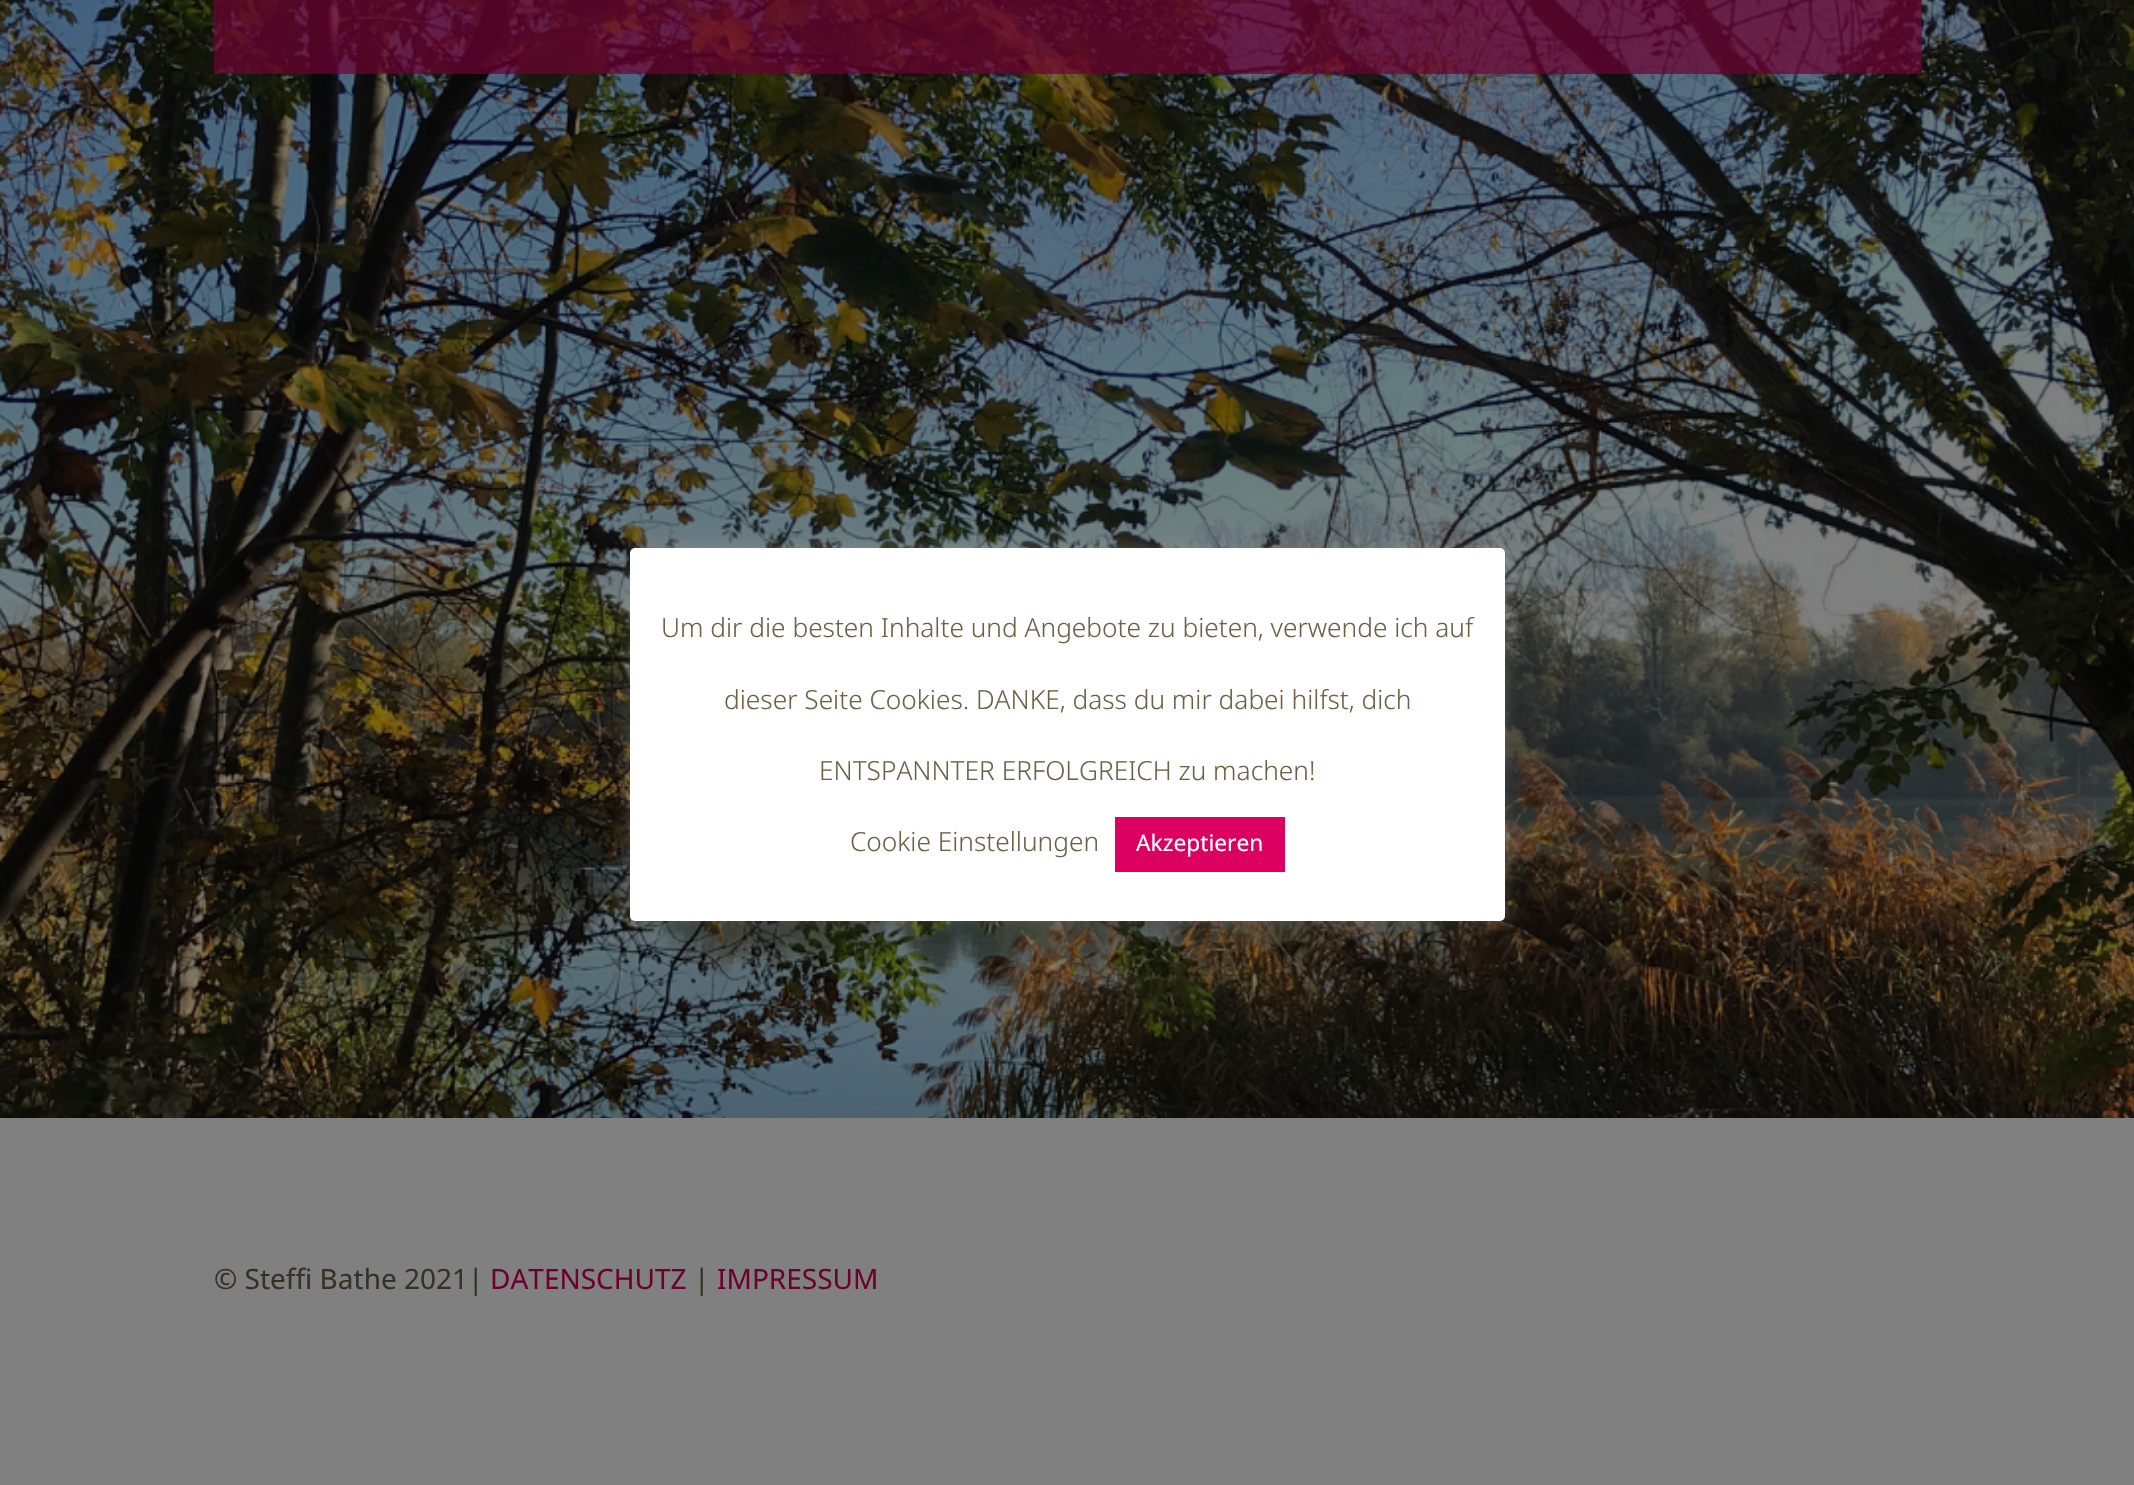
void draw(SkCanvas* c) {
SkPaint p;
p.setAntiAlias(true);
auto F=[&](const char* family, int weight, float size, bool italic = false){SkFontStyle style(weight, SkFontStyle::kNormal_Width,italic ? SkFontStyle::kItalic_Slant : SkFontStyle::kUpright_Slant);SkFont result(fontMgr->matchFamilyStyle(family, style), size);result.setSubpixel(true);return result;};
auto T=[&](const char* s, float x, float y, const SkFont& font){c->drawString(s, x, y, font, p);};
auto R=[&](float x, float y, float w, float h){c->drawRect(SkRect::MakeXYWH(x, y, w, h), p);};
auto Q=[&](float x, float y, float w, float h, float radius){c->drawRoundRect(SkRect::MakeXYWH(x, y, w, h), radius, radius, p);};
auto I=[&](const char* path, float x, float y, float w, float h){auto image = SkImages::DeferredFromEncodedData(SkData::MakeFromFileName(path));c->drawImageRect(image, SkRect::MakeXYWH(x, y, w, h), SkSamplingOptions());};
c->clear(0xff808080);
I("1.png",0,0,2134,1118);
p.setColor(0x4dacabab);
p.setMaskFilter(SkMaskFilter::MakeBlur(kNormal_SkBlurStyle, 9));
c->drawRoundRect(SkRect::MakeXYWH(630,546,875,373),5,5,p);
p.setMaskFilter(nullptr);
p.setColor(0xffffffff);
Q(630,548,875,373,5);
auto f1 = F("Noto Sans",300,26.25);
p.setColor(0xff6e6046);
T("Um dir die besten Inhalte und Angebote zu bieten, verwende ich auf",661,637,f1);
T("dieser Seite Cookies. DANKE, dass du mir dabei hilfst, dich",724,709,f1);
T("ENTSPANNTER ERFOLGREICH zu machen!",819,780,f1);
T("Cookie Einstellungen",850,851,f1);
p.setColor(0xffdc0060);
R(1115,817,170,55);
auto f2 = F("Noto Sans",400,22.75);
p.setColor(0xffffffff);
T("Akzeptieren",1136,851,f2);
p.setColor(0xb36e0030);
R(214,0,1708,74);
auto f3 = F("Noto Sans",400,28);
p.setColor(0xff373023);
T("© Steffi Bathe 2021|",214,1289,f3);
p.setColor(0xff6e0030);
T("DATENSCHUTZ",490,1289,f3);
p.setColor(0xff373023);
T("|",694,1289,f3);
p.setColor(0xff6e0030);
T("IMPRESSUM",717,1289,f3);
}
